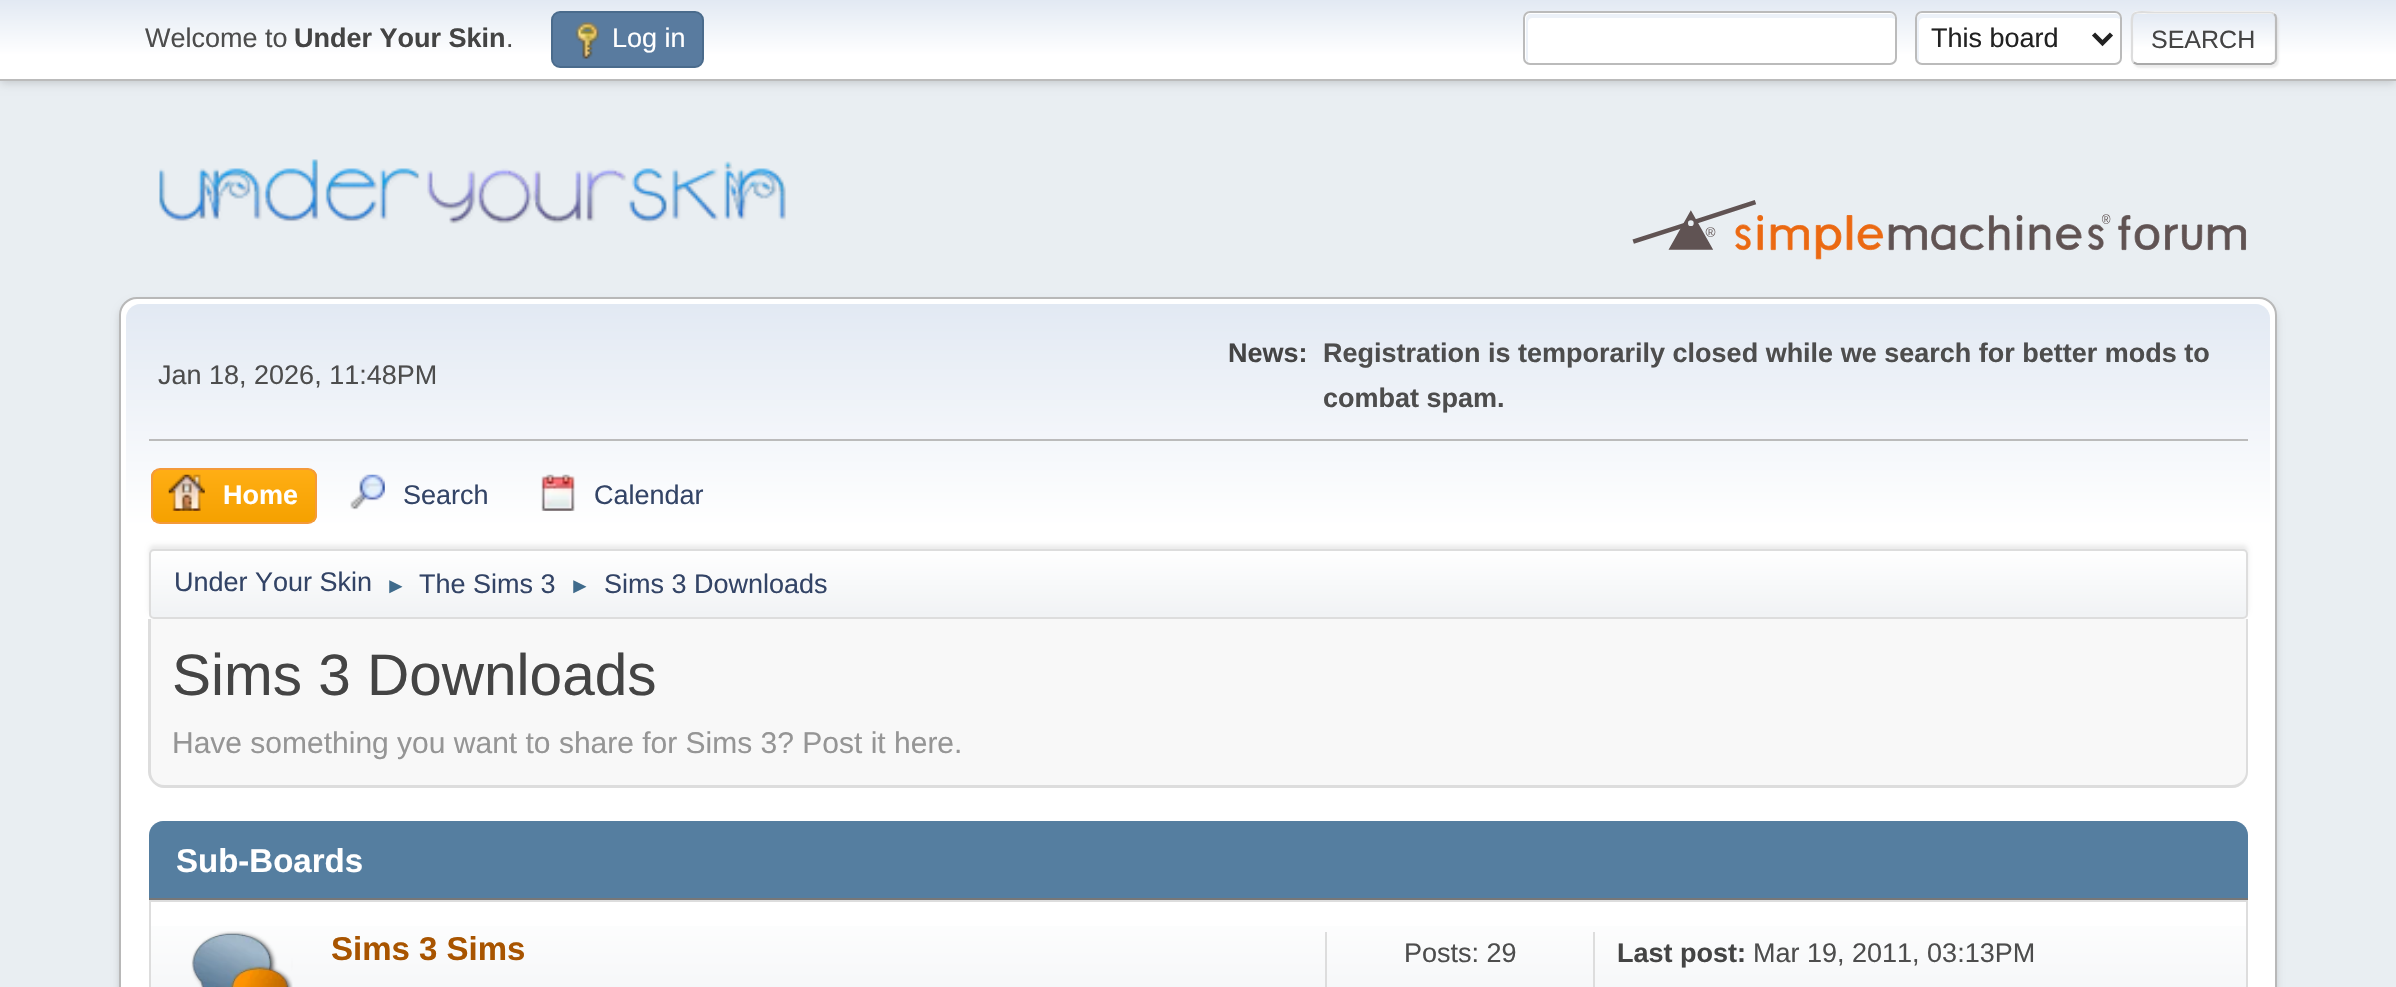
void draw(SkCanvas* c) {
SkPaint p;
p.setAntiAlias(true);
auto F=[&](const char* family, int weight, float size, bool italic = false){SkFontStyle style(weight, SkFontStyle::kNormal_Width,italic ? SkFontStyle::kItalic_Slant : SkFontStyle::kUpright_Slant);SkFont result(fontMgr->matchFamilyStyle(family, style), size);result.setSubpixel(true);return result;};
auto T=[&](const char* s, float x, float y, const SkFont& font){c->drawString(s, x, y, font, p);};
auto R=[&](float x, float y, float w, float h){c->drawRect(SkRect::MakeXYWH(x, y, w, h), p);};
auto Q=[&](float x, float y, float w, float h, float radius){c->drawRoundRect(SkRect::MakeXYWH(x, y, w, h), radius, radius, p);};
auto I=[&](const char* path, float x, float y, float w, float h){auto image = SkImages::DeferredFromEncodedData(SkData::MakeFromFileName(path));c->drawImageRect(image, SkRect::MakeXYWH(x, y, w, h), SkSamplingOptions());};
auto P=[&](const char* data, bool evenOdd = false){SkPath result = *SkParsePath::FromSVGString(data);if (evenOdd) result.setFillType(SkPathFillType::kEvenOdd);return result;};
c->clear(0xffe9eef2);
p.setColor(0x29000000);
p.setMaskFilter(SkMaskFilter::MakeBlur(kNormal_SkBlurStyle, 4.5));
c->drawRect(SkRect::MakeXYWH(0,2,2396,81),p);
p.setMaskFilter(nullptr);
{
const SkColor colors[] = {0xffe2e9f3,0xffffffff};
const float stops[] = {0,.7};
const SkPoint ends[] = {{1198,0}, {1198,79}};
p.setShader(SkGradientShader::MakeLinear(ends, colors, stops, 2, SkTileMode::kClamp));
p.setAlpha(255);
}
R(0,0,2396,79);
p.setShader(nullptr);
p.setColor(0xffbbbbbb);
R(0,79,2396,2);
auto f1 = F("Liberation Sans",400,27);
p.setColor(0xff4d4d4d);
T("Welcome to",145,47,f1);
auto f2 = F("Liberation Sans",700,27);
p.setColor(0xff444444);
T("Under Your Skin",294,47,f2);
p.setColor(0xff4d4d4d);
T(".",506,47,f1);
p.setColor(0xff597b9f);
c->drawRoundRect(SkRect::MakeXYWH(552,12,151,55),8,8,p);
p.setStroke(true);
p.setStrokeWidth(2);
p.setColor(0xff4a6b8c);
c->drawRoundRect(SkRect::MakeXYWH(552,12,151,55),8,8,p);
I("1.png",575,22,25,37);
p.setStroke(false);
p.setColor(0xffffffff);
T("Log in",612,47,f1);
Q(1523,11,374,54,7);
p.setColor(0xffecf1f8);
c->drawPath(P("M1532 18h360l3 1c0-3-2-5-5-5h-359c-3 0-5 2-5 5v39c0 2 1 3 2 4v-40c0-2 2-4 4-4z"),p);
p.setStroke(true);
p.setColor(0xffbbbbbb);
c->drawRoundRect(SkRect::MakeXYWH(1524,12,372,52),6,6,p);
p.setStroke(false);
p.setColor(0xffffffff);
Q(1915,11,207,54,7);
p.setColor(0xffecf1f8);
c->drawPath(P("M1924 18h193l3 1c0-3-2-5-5-5h-193c-3 0-5 2-5 5v39c0 2 1 3 2 4v-40c0-2 2-4 5-4z"),p);
p.setStroke(true);
p.setColor(0xffbbbbbb);
c->drawRoundRect(SkRect::MakeXYWH(1916,12,205,52),6,6,p);
p.setStrokeWidth(4.5);
p.setColor(0xff222222);
c->drawPath(P("M2093.5 34l9 9l9-9"),p);
p.setStroke(false);
T("This board",1931,47,f1);
p.setColor(0x91dddddd);
p.setMaskFilter(SkMaskFilter::MakeBlur(kNormal_SkBlurStyle, 1));
c->drawRoundRect(SkRect::MakeXYWH(2133,14,146,54),7,7,p);
p.setMaskFilter(nullptr);
c->save();
c->clipPath(P("M2138 11h132c4 0 7 3 7 7v40c0 4-3 7-7 7h-132c-4 0-7-3-7-7v-40c0-4 3-7 7-7z"),true);
{
const SkColor colors[] = {0xffe2e9f3,0xffffffff};
const float stops[] = {0,.7};
const SkPoint ends[] = {{2204,-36}, {2204,14}};
p.setShader(SkGradientShader::MakeLinear(ends, colors, stops, 2, SkTileMode::kClamp));
p.setAlpha(255);
}
R(2131,11,146,3);
{
const SkColor colors[] = {0xffe2e9f3,0xffffffff};
const float stops[] = {0,.7};
const SkPoint ends[] = {{2204,13}, {2204,63}};
p.setShader(SkGradientShader::MakeLinear(ends, colors, stops, 2, SkTileMode::kClamp));
p.setAlpha(255);
}
R(2131,14,146,49);
c->restore();
p.setStroke(true);
p.setStrokeWidth(2.2);
p.setShader(nullptr);
p.setColor(0xffbbbbbb);
c->drawPath(P("M2274 14c1.5 1 2 2.5 2 4v40.5c0 1.5-.5 3-2 4"),p);
p.setColor(0xffaaaaaa);
c->drawPath(P("M2274 62.5l-3 1.5h-134l-3.5-1.5"),p);
p.setColor(0xffdddddd);
c->drawPath(P("M2133.5 62.5c-2.5-2.5-1.5-7.5-1.5-10.5v-14c0-30.5-4.5-25.5 27.5-25.5h110.5c1.5 0 3 .5 4 1.5"),p);
auto f3 = F("Liberation Sans",400,25);
p.setStroke(false);
p.setColor(0xff444444);
T("SEARCH",2151,48,f3);
I("2.png",159,159,627,65);
I("3.png",1632,200,615,60);
p.setColor(0x24000000);
p.setMaskFilter(SkMaskFilter::MakeBlur(kNormal_SkBlurStyle, 3.5));
c->drawRoundRect(SkRect::MakeXYWH(119,302,2158,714),18,18,p);
p.setMaskFilter(nullptr);
p.setColor(0xffffffff);
c->drawRoundRect(SkRect::MakeXYWH(120,298,2156,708),17,17,p);
p.setStroke(true);
p.setStrokeWidth(2);
p.setColor(0xffb8b8b8);
c->drawRoundRect(SkRect::MakeXYWH(120,298,2156,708),17,17,p);
p.setStroke(false);
{
const SkColor colors[] = {0xffe2e9f3,0xffffffff};
const float stops[] = {0,.7};
const SkPoint ends[] = {{1198,304}, {1198,623}};
p.setShader(SkGradientShader::MakeLinear(ends, colors, stops, 2, SkTileMode::kClamp));
p.setAlpha(255);
}
c->drawPath(P("M140 304h2116c7.5 0 14 6.5 14 14v305h-2144v-305c0-7.5 6.5-14 14-14z"),p);
p.setShader(nullptr);
p.setColor(0xffbbbbbb);
R(149,439,2099,2);
p.setColor(0xff4d4d4d);
T("Jan 18, 2026, 11:48PM",158,384,f1);
p.setColor(0xff444444);
T("News:",1228,362,f2);
p.setColor(0xff4d4d4d);
T("Registration is temporarily closed while we search for better mods to",1323,362,f2);
T("combat spam.",1323,407,f2);
c->save();
c->clipPath(P("M160 468h148c5 0 9 4 9 9v38c0 5-4 9-9 9h-148c-5 0-9-4-9-9v-38c0-5 4-9 9-9z"),true);
{
const SkColor colors[] = {0xffffae14,0xfff5a100};
const float stops[] = {0,1};
const SkPoint ends[] = {{234,470}, {234,522}};
p.setShader(SkGradientShader::MakeLinear(ends, colors, stops, 2, SkTileMode::kClamp));
p.setAlpha(255);
}
R(151,470,166,52);
c->restore();
p.setStroke(true);
p.setShader(nullptr);
p.setColor(0xfff49a3a);
c->drawRoundRect(SkRect::MakeXYWH(152,469,164,54),8,8,p);
I("4.png",168,474,37,37);
p.setStroke(false);
p.setColor(0xffffffff);
T("Home",223,504,f2);
I("5.png",350,474,35,36);
p.setColor(0xff334466);
T("Search",403,504,f1);
I("6.png",541,474,34,37);
T("Calendar",594,504,f1);
p.setColor(0x14000000);
p.setMaskFilter(SkMaskFilter::MakeBlur(kNormal_SkBlurStyle, 2));
c->drawRoundRect(SkRect::MakeXYWH(149,545,2099,69),5,5,p);
p.setMaskFilter(nullptr);
c->save();
c->clipPath(P("M154 549h2089c3 0 5 2 5 5v60c0 3-2 5-5 5h-2089c-3 0-5-2-5-5v-60c0-3 2-5 5-5z"),true);
{
const SkColor colors[] = {0xffffffff,0xfff1f3f5};
const float stops[] = {0,.95};
const SkPoint ends[] = {{1198,551}, {1198,617}};
p.setShader(SkGradientShader::MakeLinear(ends, colors, stops, 2, SkTileMode::kClamp));
p.setAlpha(255);
}
R(149,551,2099,66);
c->restore();
p.setStroke(true);
p.setShader(nullptr);
p.setColor(0xffdddddd);
c->drawRoundRect(SkRect::MakeXYWH(150,550,2097,68),4,4,p);
p.setStroke(false);
p.setColor(0xff334466);
T("Under Your Skin",174,591,f1);
auto f4 = F("Liberation Sans",400,22);
p.setColor(0xff3f6b8c);
T("►",385,593,f4);
p.setColor(0xff334466);
T("The Sims 3",419,593,f1);
p.setColor(0xff3f6b8c);
T("►",569,593,f4);
p.setColor(0xff334466);
T("Sims 3 Downloads",604,593,f1);
p.setColor(0xfff8f8f8);
c->drawPath(P("M149 619h2099v153c0 9-7 16-16 16h-2067c-9 0-16-7-16-16z"),p);
p.setColor(0xffdddddd);
c->drawPath(P("M148 619h2100v153c0 8-7 16-16 16h-2068c-8 0-16-8-16-16zm3 0h2095v153c0 7-7 13-14 13h-2068c-7 0-13-6-13-13z",true),p);
auto f5 = F("Liberation Sans",400,58.5);
p.setColor(0xff444444);
T("Sims 3 Downloads",172,695,f5);
auto f6 = F("Liberation Sans",400,30);
p.setColor(0xff959595);
T("Have something you want to share for Sims 3? Post it here.",172,753,f6);
p.setColor(0xff557ea0);
c->drawPath(P("M163 821h2071c7.5 0 14 6.5 14 14v65h-2099v-65c0-7.5 6.5-14 14-14z"),p);
p.setColor(0xff777777);
R(149,898,2099,2);
auto f7 = F("Liberation Sans",700,33);
p.setColor(0xffffffff);
T("Sub-Boards",176,872,f7);
{
const SkColor colors[] = {0xffffffff,0xfff1f3f5};
const float stops[] = {0,.95};
const SkPoint ends[] = {{1198,902}, {1198,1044}};
p.setShader(SkGradientShader::MakeLinear(ends, colors, stops, 2, SkTileMode::kClamp));
p.setAlpha(255);
}
R(151,926,2095,61);
p.setStroke(true);
p.setShader(nullptr);
p.setColor(0xffdddddd);
c->drawRect(SkRect::MakeXYWH(150,901,2097,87),p);
I("7.png",191,931,102,56);
p.setStroke(false);
p.setColor(0xffa85400);
T("Sims 3 Sims",331,960,f7);
p.setColor(0xffdddddd);
R(1593,932,2,55);
R(1325,932,2,55);
p.setColor(0xff4d4d4d);
T("Posts: 29",1404,962,f1);
p.setColor(0xff444444);
T("Last post:",1617,962,f2);
p.setColor(0xff4d4d4d);
T("Mar 19, 2011, 03:13PM",1753,962,f1);
}
